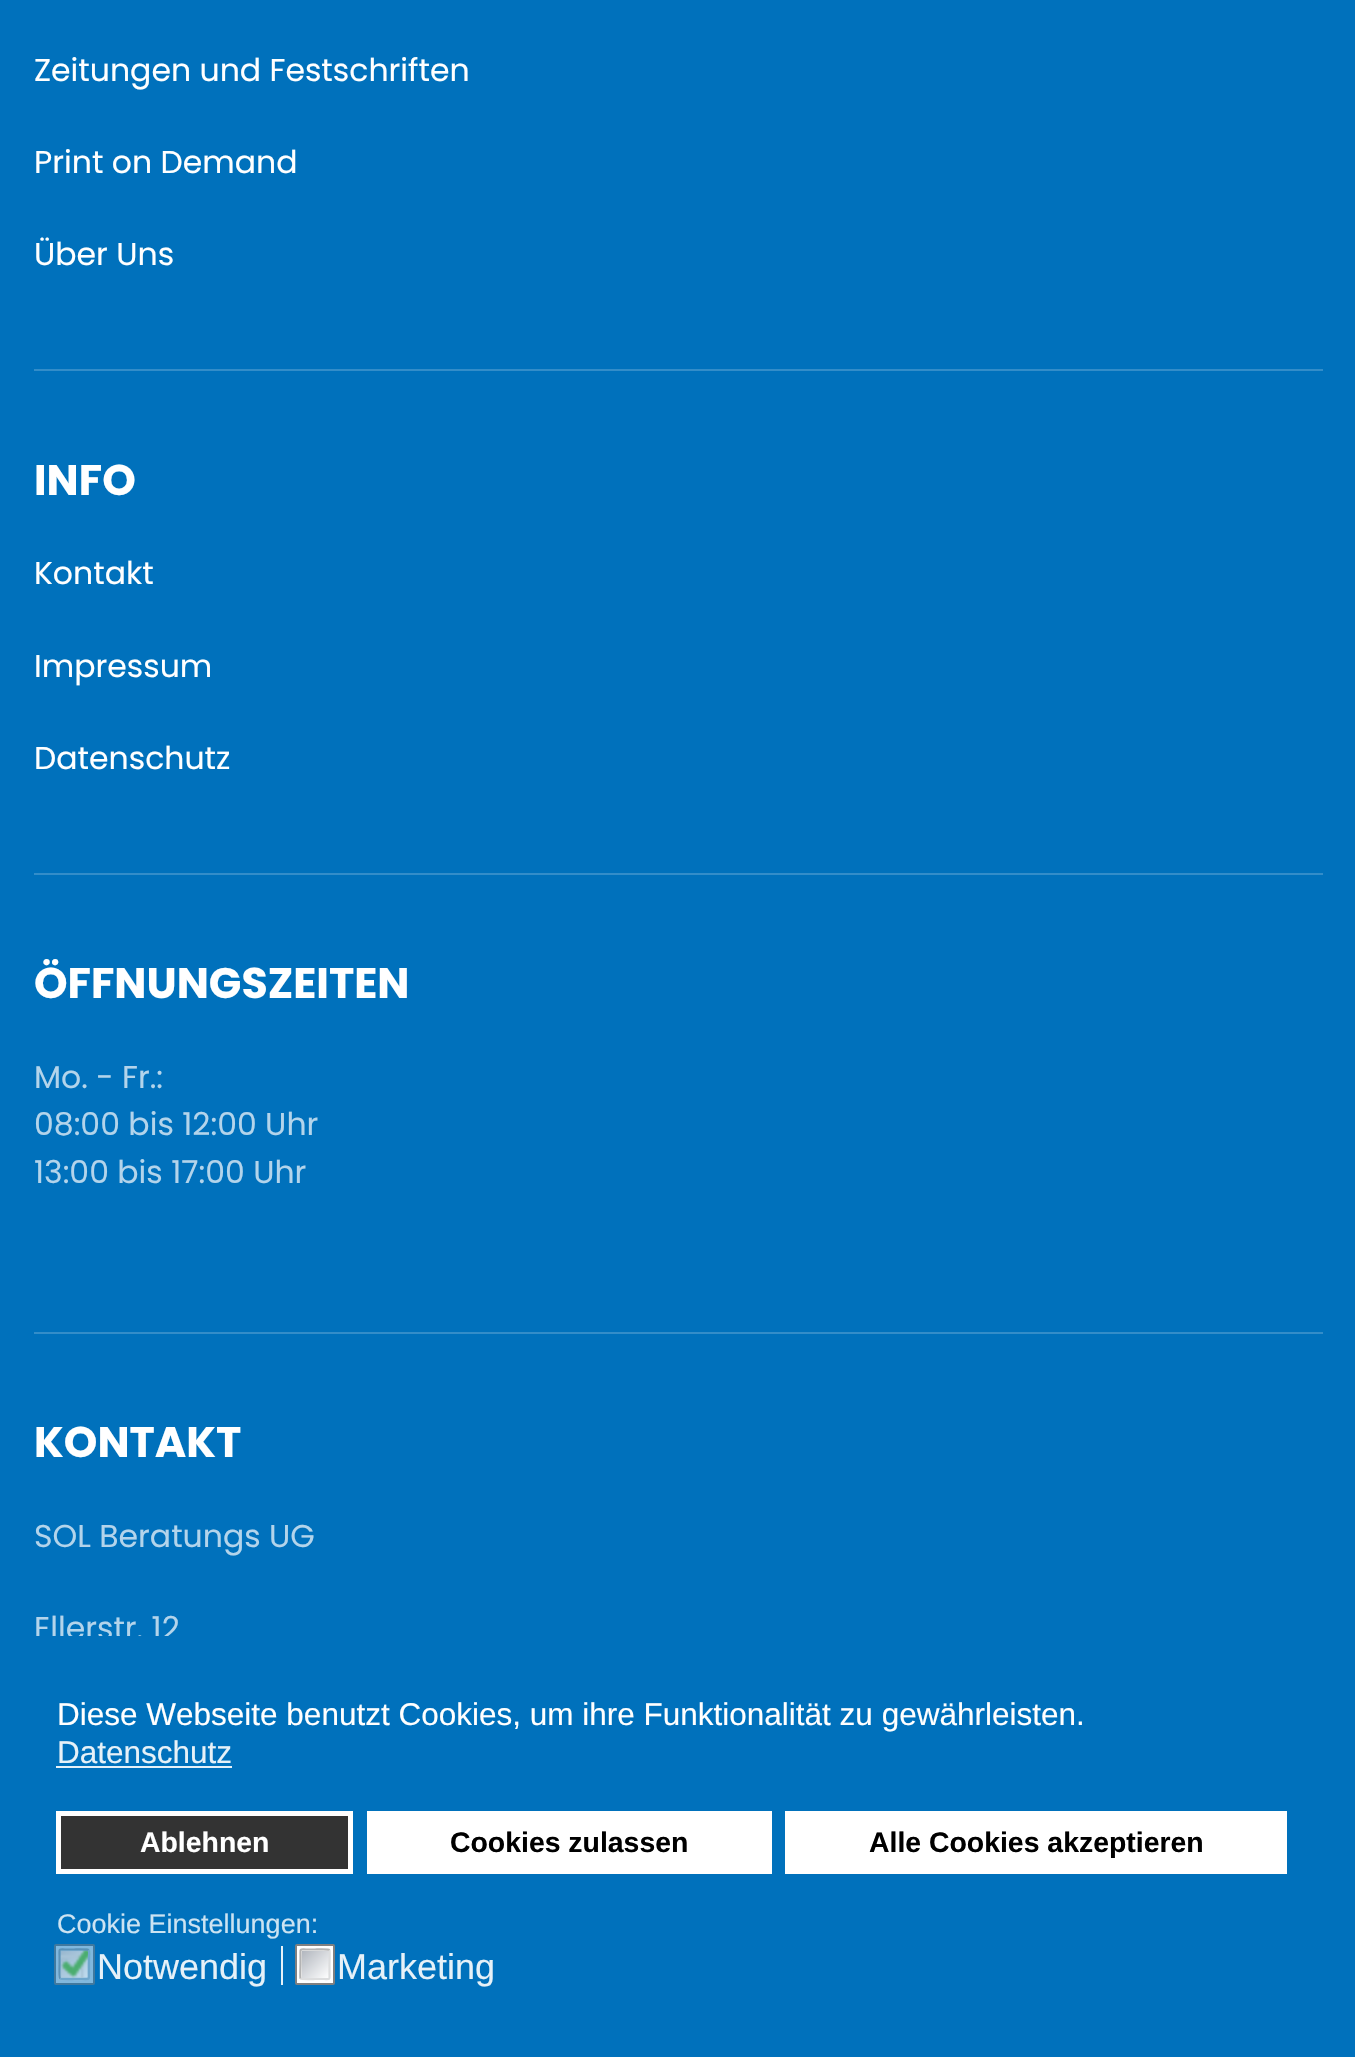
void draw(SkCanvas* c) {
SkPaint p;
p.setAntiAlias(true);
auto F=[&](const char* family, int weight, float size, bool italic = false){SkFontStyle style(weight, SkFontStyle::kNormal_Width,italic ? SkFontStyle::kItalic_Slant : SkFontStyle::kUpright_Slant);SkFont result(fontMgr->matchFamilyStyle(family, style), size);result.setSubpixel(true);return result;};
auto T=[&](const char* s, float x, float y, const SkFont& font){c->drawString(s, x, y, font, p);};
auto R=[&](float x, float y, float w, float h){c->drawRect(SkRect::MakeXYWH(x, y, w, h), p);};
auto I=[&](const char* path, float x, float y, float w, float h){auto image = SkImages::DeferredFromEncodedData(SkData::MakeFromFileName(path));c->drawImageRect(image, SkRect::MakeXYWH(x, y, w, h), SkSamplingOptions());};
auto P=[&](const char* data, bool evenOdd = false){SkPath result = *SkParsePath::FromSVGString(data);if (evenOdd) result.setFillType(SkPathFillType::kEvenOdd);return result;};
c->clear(0xff0071bc);
auto f1 = F("Poppins",400,31.5);
p.setColor(0xffffffff);
T("Zeitungen und Festschriften",34,81,f1);
T("Print on Demand",34,173,f1);
T("Über Uns",34,265,f1);
p.setColor(0xff338dc9);
R(34,369,1289,2);
auto f2 = F("Poppins",700,42.75);
p.setColor(0xffffffff);
T("INFO",34,495,f2);
T("Kontakt",34,584,f1);
T("Impressum",34,677,f1);
T("Datenschutz",34,769,f1);
p.setColor(0xff338dc9);
R(34,873,1289,2);
p.setColor(0xffffffff);
T("ÖFFNUNGSZEITEN",34,998,f2);
p.setColor(0xffb3d4eb);
T("Mo. - Fr.:",34,1088,f1);
T("08:00 bis 12:00 Uhr",34,1135,f1);
T("13:00 bis 17:00 Uhr",34,1183,f1);
p.setColor(0xff338dc9);
R(34,1332,1289,2);
p.setColor(0xffffffff);
T("KONTAKT",34,1457,f2);
p.setColor(0xffb3d4eb);
T("SOL Beratungs UG",34,1547,f1);
T("Ellerstr. 12",34,1639,f1);
p.setColor(0xff0171bc);
R(36,1636,143,4);
auto f3 = F("Liberation Sans",400,31.5);
p.setColor(0xffffffff);
T("Diese Webseite benutzt Cookies, um ihre Funktionalität zu gewährleisten.",57,1725,f3);
p.setColor(0xffe6f1f8);
T("Datenschutz",57,1763,f3);
R(56,1766,176,2);
p.setColor(0xff333333);
c->drawRect(SkRect::MakeXYWH(58.5,1813.5,292,58),p);
p.setStroke(true);
p.setStrokeWidth(5);
p.setColor(0xffffffff);
c->drawRect(SkRect::MakeXYWH(58.5,1813.5,292,58),p);
auto f4 = F("Liberation Sans",700,28.4);
p.setStroke(false);
T("Ablehnen",140,1852,f4);
R(367,1811,405,63);
p.setColor(0xff000000);
T("Cookies zulassen",450,1852,f4);
p.setColor(0xffffffff);
R(785,1811,502,63);
p.setColor(0xff000000);
T("Alle Cookies akzeptieren",869,1852,f4);
auto f5 = F("Liberation Sans",400,27);
p.setColor(0xffcce3f2);
T("Cookie Einstellungen:",57,1933,f5);
p.setColor(0xff80b8de);
c->drawRoundRect(SkRect::MakeXYWH(55,1945,39,39),1,1,p);
p.setStroke(true);
p.setStrokeWidth(2);
p.setColor(0xff41799e);
c->drawRoundRect(SkRect::MakeXYWH(55,1945,39,39),1,1,p);
I("1.png",58,1948,33,33);
p.setStrokeWidth(2.2);
p.setColor(0xff6fa7cd);
c->drawPath(P("M88.5 1950c1 1 .5 12.5 .5 14v9c0 7 1 6-6 6h-9c-1.5 0-13 .5-14-.5"),p);
p.setColor(0xff5a92b8);
c->drawPath(P("M60 1978.5c-1-1-.5-12.5-.5-14.5v-9c0-6.5-1-5.5 5.5-5.5h9c2 0 13.5-.5 14.5 .5"),p);
p.setStroke(false);
p.setColor(0xffe6f1f8);
R(281,1946,2,39);
auto f6 = F("Liberation Sans",400,36);
T("Notwendig",97,1979,f6);
p.setColor(0xffffffff);
c->drawRoundRect(SkRect::MakeXYWH(296,1945,38,39),1,1,p);
p.setStroke(true);
p.setStrokeWidth(2);
p.setColor(0xff808080);
c->drawRoundRect(SkRect::MakeXYWH(296,1945,38,39),1,1,p);
p.setStroke(false);
{
const SkColor colors[] = {0xffb1b6be,0xffffffff};
const float stops[] = {0,1};
const SkPoint ends[] = {{302,1951}, {329,1978}};
p.setShader(SkGradientShader::MakeLinear(ends, colors, stops, 2, SkTileMode::kClamp));
p.setAlpha(255);
}
R(302,1951,27,27);
p.setStroke(true);
p.setStrokeWidth(2.2);
p.setShader(nullptr);
p.setColor(0xffdcddde);
c->drawPath(P("M329.5 1950c.5 1 0 12.5 0 14v9c0 7 1 6-5.5 6h-9c-2 0-13.5 .5-14.5-.5"),p);
p.setColor(0xffb3b3b3);
c->drawPath(P("M300.5 1978.5c-.5-1 0-12.5 0-14.5v-9c0-6.5-1-5.5 5.5-5.5h9c2 0 13.5-.5 14.5 .5"),p);
p.setStroke(false);
p.setColor(0xffe6f1f8);
T("Marketing",337,1979,f6);
}
